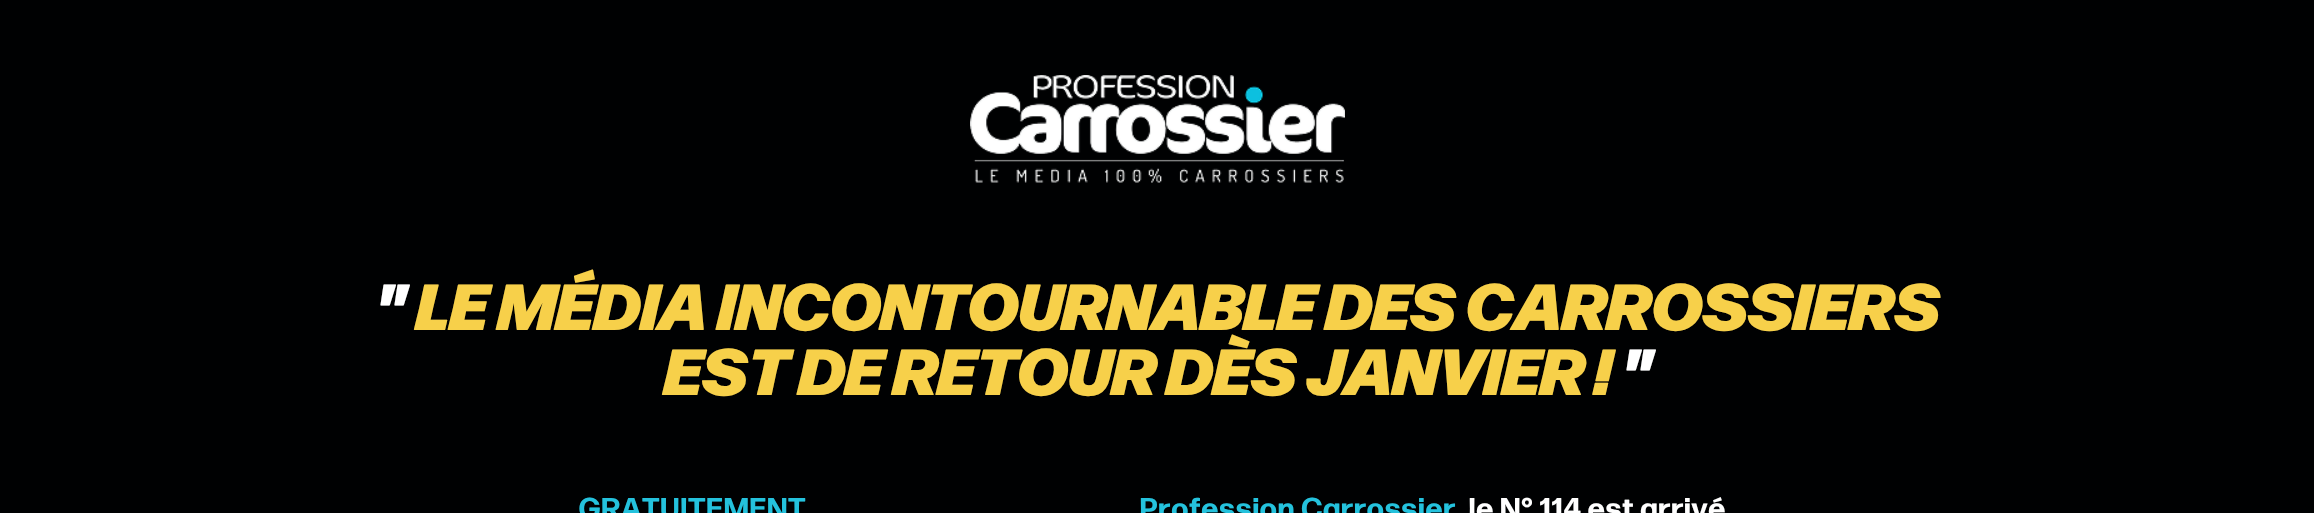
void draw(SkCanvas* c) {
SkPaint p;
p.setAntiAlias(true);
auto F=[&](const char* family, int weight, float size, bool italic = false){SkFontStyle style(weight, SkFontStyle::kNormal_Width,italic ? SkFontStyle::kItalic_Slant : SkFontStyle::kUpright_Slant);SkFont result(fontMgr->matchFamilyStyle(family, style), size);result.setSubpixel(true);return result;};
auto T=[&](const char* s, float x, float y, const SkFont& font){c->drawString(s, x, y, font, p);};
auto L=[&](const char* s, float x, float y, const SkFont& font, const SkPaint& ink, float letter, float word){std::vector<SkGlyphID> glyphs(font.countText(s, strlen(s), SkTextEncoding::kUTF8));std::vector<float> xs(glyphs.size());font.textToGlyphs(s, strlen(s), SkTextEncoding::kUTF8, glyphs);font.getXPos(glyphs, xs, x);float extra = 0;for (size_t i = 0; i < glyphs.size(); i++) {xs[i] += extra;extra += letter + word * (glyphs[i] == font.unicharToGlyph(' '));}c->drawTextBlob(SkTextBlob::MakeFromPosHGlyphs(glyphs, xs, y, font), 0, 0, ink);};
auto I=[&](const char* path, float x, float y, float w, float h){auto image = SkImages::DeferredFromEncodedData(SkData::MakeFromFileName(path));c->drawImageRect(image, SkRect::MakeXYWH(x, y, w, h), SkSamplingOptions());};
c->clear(0xff000102);
I("1.png",970,75,375,108);
auto f1 = F("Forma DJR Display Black",900,65,true);
p.setColor(0xffffffff);
T("\"",375,330,f1);
p.setColor(0xfff7d04a);
T("LE MÉDIA INCONTOURNABLE DES CARROSSIERS",416,330,f1);
T("EST DE RETOUR DÈS JANVIER !",664,395,f1);
p.setColor(0xffffffff);
T("\"",1621,395,f1);
auto f2 = F("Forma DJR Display",700,30);
p.setColor(0xff24c2dd);
L("GRATUITEMENT",579,519,f2,p,1.25,0);
L("Profession Carrossier",1140,519,f2,p,1.25,0);
p.setColor(0xffffffff);
L("le N° 114 est arrivé",1469,519,f2,p,1.25,0);
}
